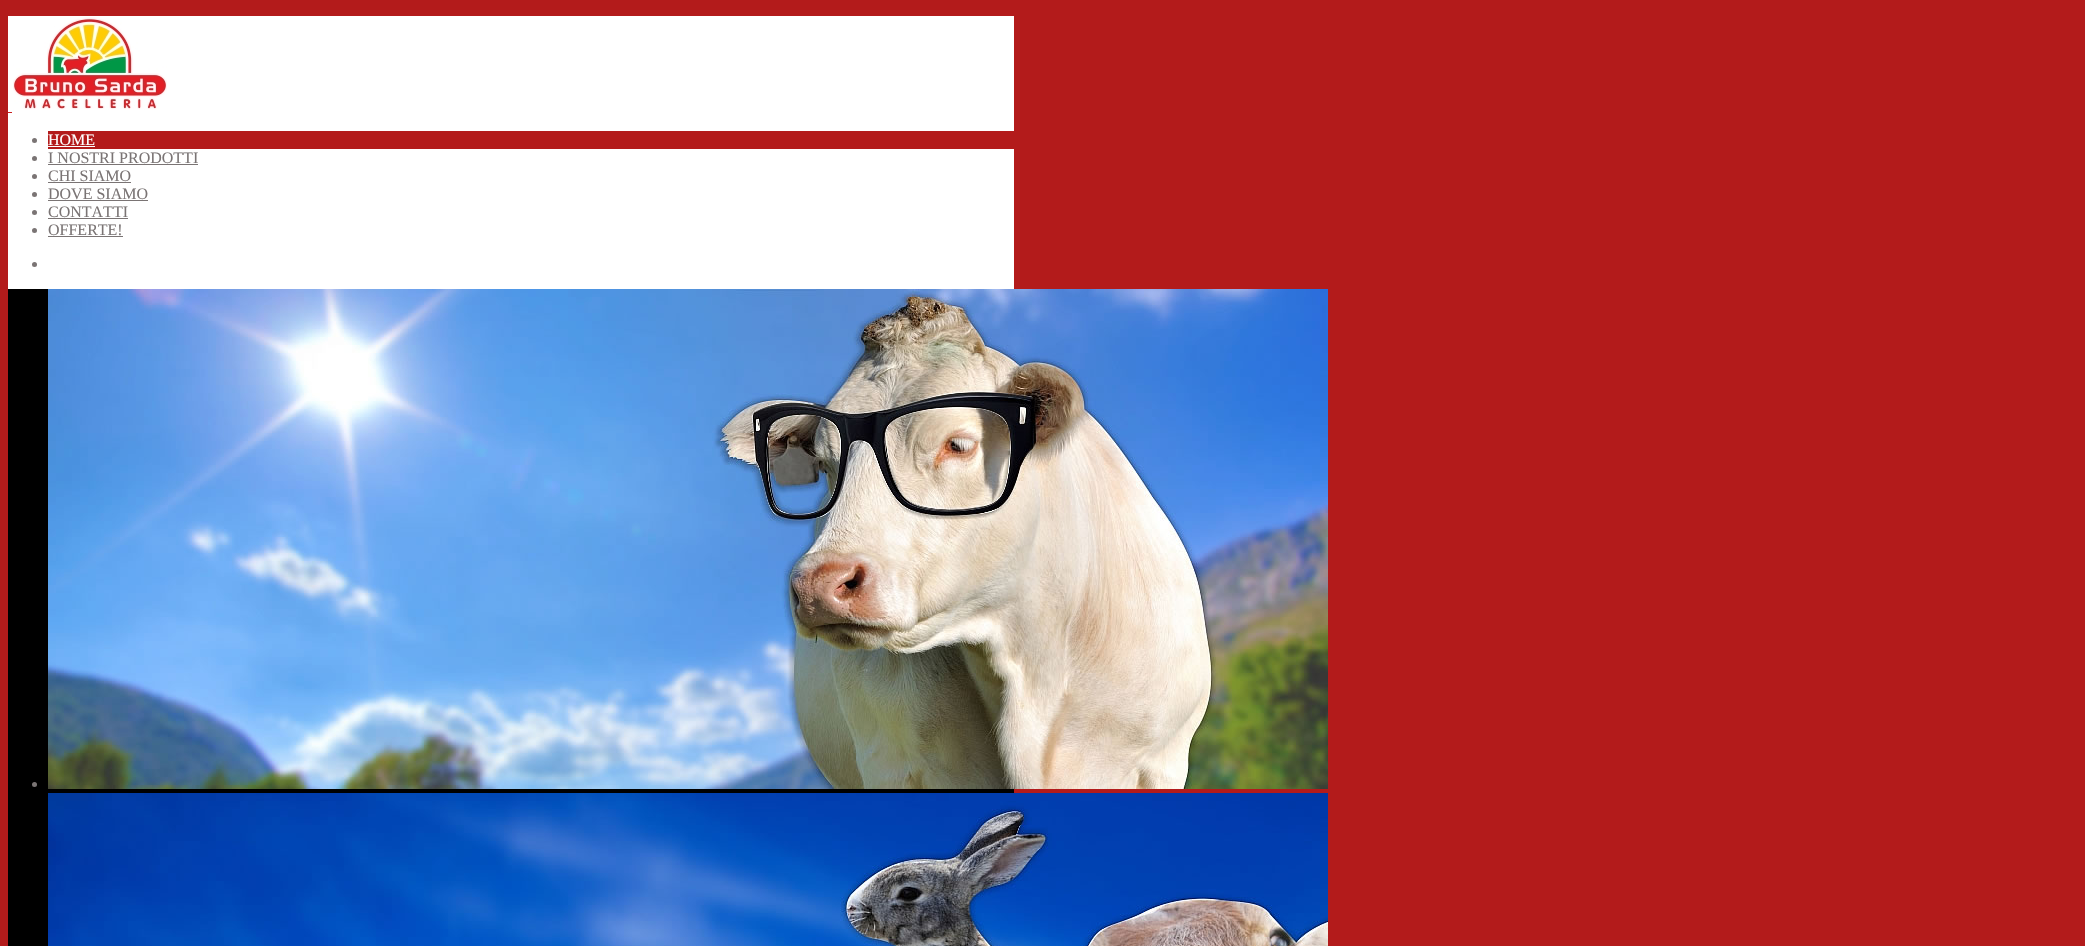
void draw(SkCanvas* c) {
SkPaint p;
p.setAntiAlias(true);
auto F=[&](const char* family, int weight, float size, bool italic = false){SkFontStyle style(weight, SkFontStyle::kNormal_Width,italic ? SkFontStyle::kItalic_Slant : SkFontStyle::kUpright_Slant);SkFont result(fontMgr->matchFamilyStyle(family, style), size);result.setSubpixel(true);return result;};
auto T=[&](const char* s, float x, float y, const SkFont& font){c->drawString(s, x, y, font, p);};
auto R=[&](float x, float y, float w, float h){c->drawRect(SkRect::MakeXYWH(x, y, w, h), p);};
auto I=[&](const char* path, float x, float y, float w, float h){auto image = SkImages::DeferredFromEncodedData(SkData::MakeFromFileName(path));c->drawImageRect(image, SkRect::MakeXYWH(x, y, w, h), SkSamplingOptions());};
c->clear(0xffb31b1b);
p.setColor(0xffffffff);
R(8,16,1006,273);
I("1.png",13,17,154,93);
p.setColor(0xffc92020);
R(8,112,4,1);
p.setColor(0xffb31b1b);
R(48,131,966,18);
p.setColor(0xff7a7474);
c->drawCircle(34.5,140.5,2.5,p);
auto f1 = F("Liberation Serif",400,16);
p.setColor(0xffffffff);
T("HOME",48,145,f1);
R(48,146,47,1);
p.setColor(0xff7a7474);
c->drawCircle(34.5,158.5,2.5,p);
T("I NOSTRI PRODOTTI",48,163,f1);
R(48,164,150,1);
c->drawCircle(34.5,176.5,2.5,p);
T("CHI SIAMO",48,181,f1);
R(48,182,83,1);
c->drawCircle(34.5,194.5,2.5,p);
T("DOVE SIAMO",48,199,f1);
R(48,200,100,1);
c->drawCircle(34.5,212.5,2.5,p);
T("CONTATTI",48,217,f1);
R(48,218,80,1);
c->drawCircle(34.5,230.5,2.5,p);
T("OFFERTE!",48,235,f1);
R(48,236,75,1);
c->drawCircle(34.5,264.5,2.5,p);
p.setColor(0xff000000);
R(8,289,1006,657);
p.setColor(0xff7a7474);
c->drawCircle(34.5,784.5,2.5,p);
I("2.png",48,289,1280,500);
I("3.png",48,793,1280,153);
}
